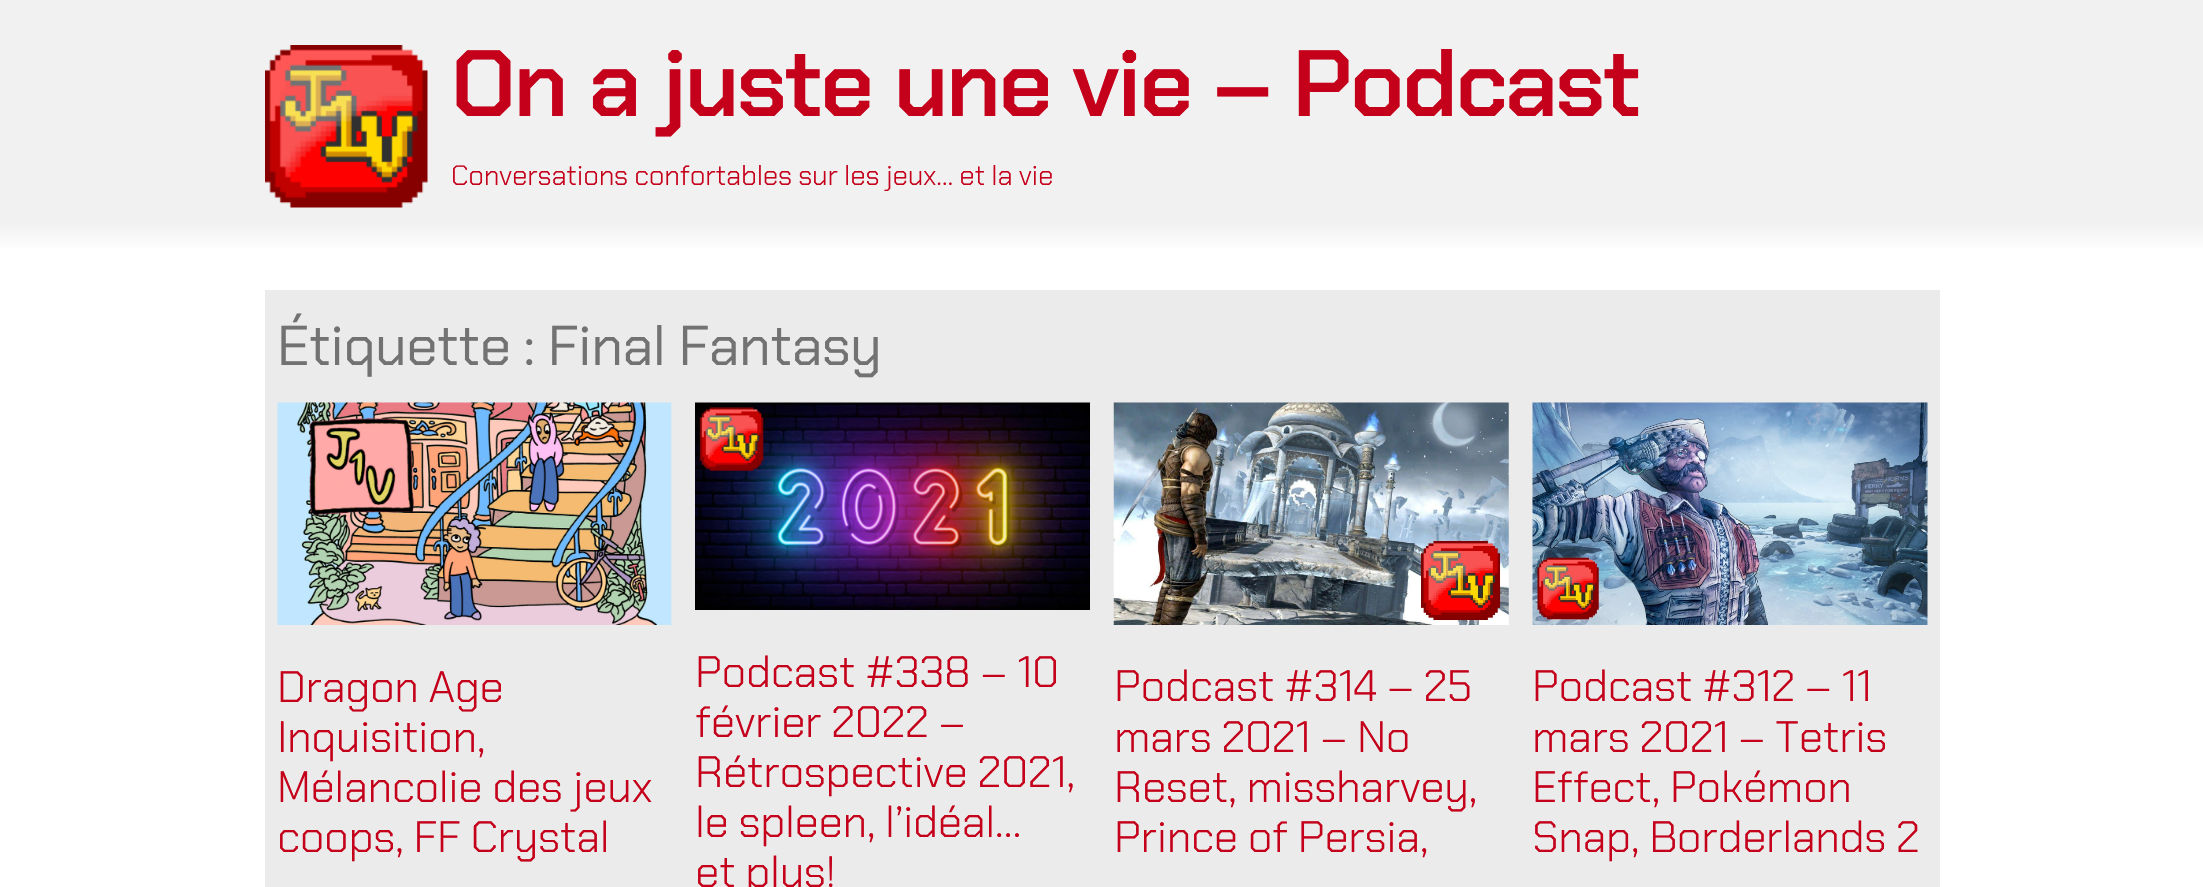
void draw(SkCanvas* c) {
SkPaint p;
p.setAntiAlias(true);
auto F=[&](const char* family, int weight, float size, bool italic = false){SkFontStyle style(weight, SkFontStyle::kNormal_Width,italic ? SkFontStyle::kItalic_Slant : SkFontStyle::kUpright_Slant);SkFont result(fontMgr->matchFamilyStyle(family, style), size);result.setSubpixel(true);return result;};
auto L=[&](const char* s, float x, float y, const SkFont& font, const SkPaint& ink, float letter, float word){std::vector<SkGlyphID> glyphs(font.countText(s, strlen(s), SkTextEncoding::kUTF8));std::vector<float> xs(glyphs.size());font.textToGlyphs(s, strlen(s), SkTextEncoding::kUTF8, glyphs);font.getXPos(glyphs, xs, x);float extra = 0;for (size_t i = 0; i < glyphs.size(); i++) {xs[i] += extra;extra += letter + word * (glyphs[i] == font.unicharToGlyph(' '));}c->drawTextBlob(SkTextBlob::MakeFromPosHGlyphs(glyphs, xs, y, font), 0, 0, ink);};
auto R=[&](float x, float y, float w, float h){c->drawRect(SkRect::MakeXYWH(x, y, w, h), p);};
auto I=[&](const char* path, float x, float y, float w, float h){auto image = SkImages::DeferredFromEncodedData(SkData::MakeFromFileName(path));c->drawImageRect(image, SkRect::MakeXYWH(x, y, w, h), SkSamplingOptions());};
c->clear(0xffffffff);
{
const SkColor colors[] = {0xffffffff,0xfff1f1f1};
const float stops[] = {0,.12};
const SkPoint ends[] = {{1102,253}, {1102,0}};
p.setShader(SkGradientShader::MakeLinear(ends, colors, stops, 2, SkTileMode::kClamp));
p.setAlpha(255);
}
R(0,0,2203,248);
I("1.png",265,45,163,163);
auto f1 = F("Chakra Petch",600,94);
p.setShader(nullptr);
p.setColor(0xffc5001a);
L("On a juste une vie – Podcast",451,116,f1,p,-2.5,0);
auto f2 = F("Chakra Petch",300,28);
L("Conversations confortables sur les jeux… et la vie",451,185,f2,p,-.25,0);
p.setColor(0xffebebeb);
R(265,290,1675,597);
auto f3 = F("Chakra Petch",400,56);
p.setColor(0xff727272);
L("Étiquette : Final Fantasy",277,365,f3,p,-.55,0);
I("2.png",277,402,395,223);
auto f4 = F("Chakra Petch",300,44);
p.setColor(0xffc5001a);
L("Dragon Age",277,702,f4,p,-.4,0);
L("Inquisition,",277,752,f4,p,-.4,0);
L("Mélancolie des jeux",277,802,f4,p,-.4,0);
L("coops, FF Crystal",277,852,f4,p,-.4,0);
I("3.png",695,402,395,208);
L("Podcast #338 – 10",695,687,f4,p,-.4,0);
L("février 2022 –",695,737,f4,p,-.4,0);
L("Rétrospective 2021,",695,787,f4,p,-.4,0);
L("le spleen, l’idéal…",695,837,f4,p,-.4,0);
L("et plus!",695,887,f4,p,-.4,0);
I("4.png",1113,402,396,223);
L("Podcast #314 – 25",1114,701,f4,p,-.4,0);
L("mars 2021 – No",1114,752,f4,p,-.4,0);
L("Reset, missharvey,",1114,802,f4,p,-.4,0);
L("Prince of Persia,",1114,852,f4,p,-.4,0);
I("5.png",1532,402,396,223);
L("Podcast #312 – 11",1532,701,f4,p,-.4,0);
L("mars 2021 – Tetris",1532,752,f4,p,-.4,0);
L("Effect, Pokémon",1532,802,f4,p,-.4,0);
L("Snap, Borderlands 2",1532,852,f4,p,-.4,0);
}
